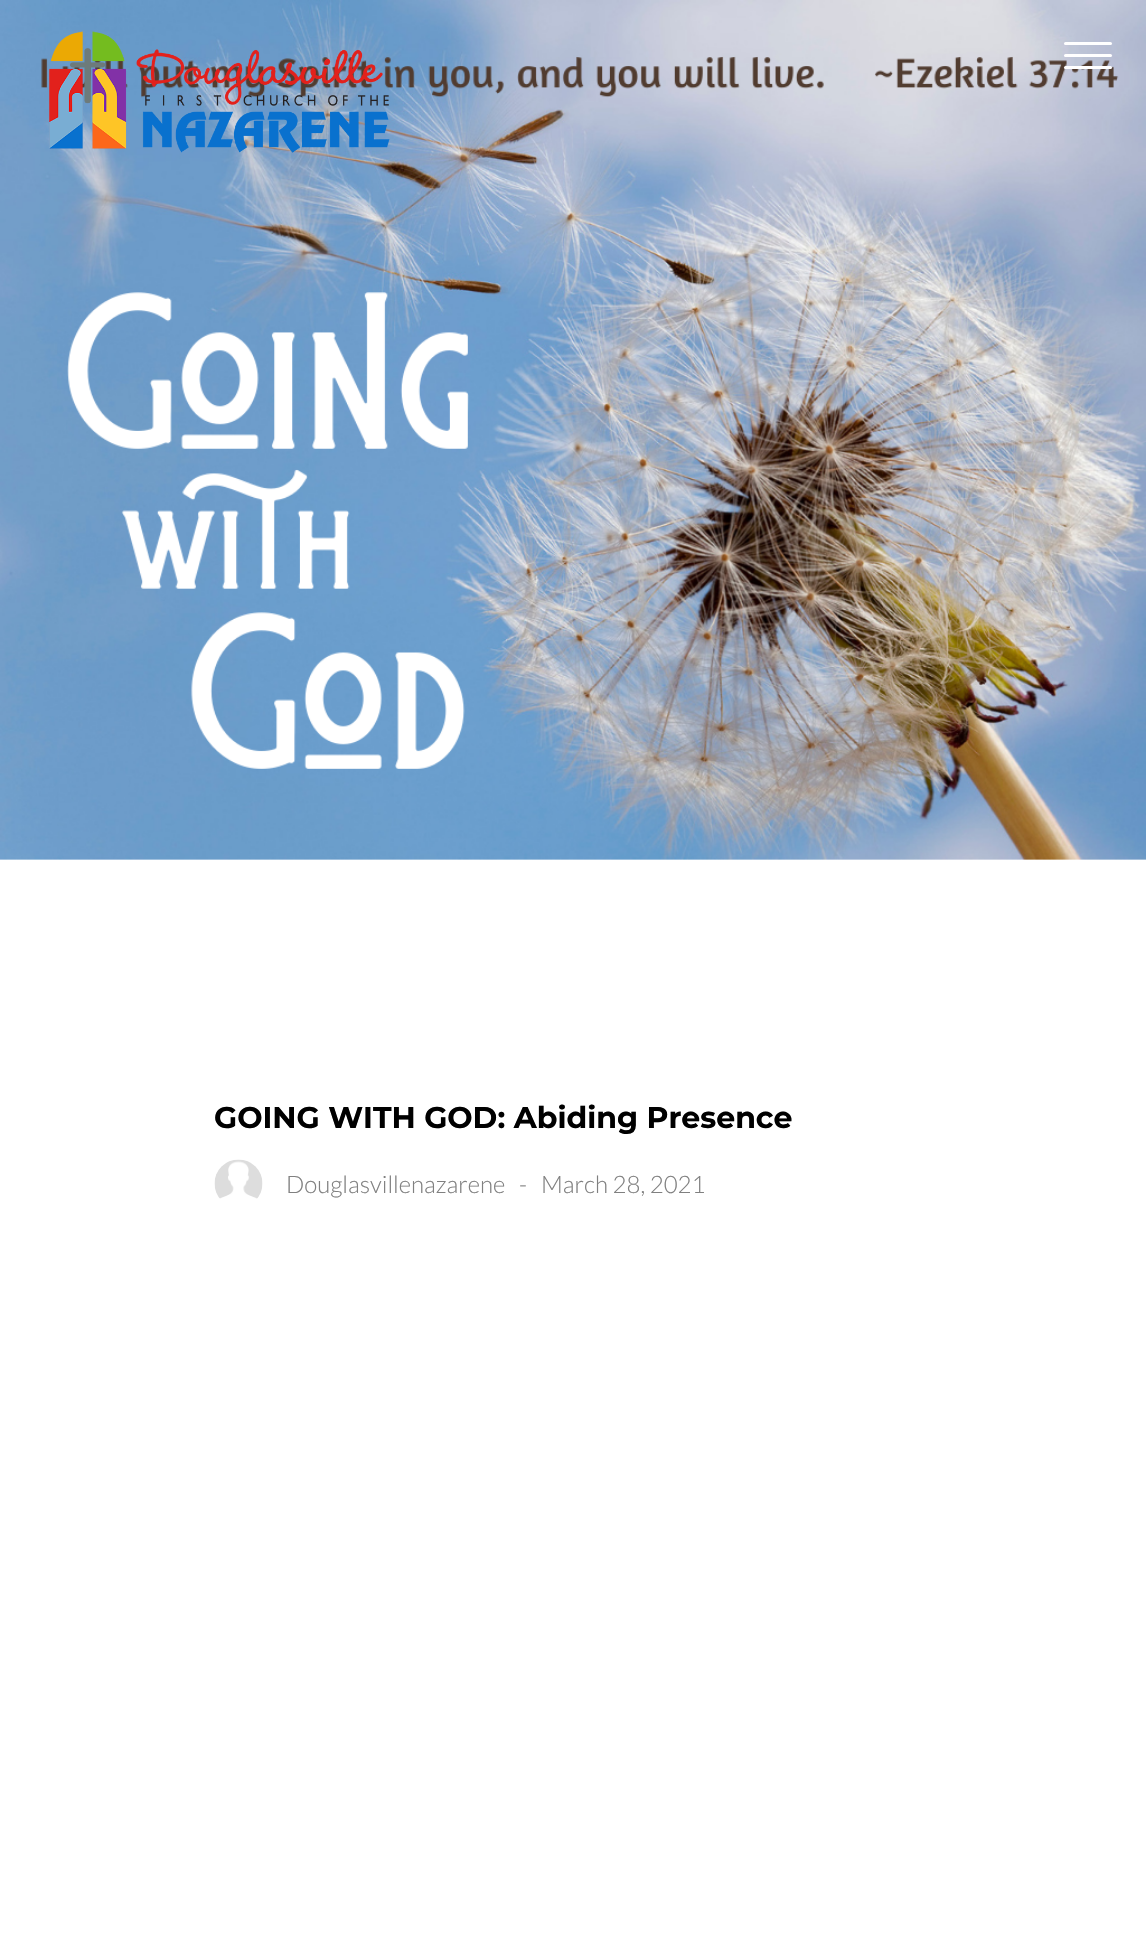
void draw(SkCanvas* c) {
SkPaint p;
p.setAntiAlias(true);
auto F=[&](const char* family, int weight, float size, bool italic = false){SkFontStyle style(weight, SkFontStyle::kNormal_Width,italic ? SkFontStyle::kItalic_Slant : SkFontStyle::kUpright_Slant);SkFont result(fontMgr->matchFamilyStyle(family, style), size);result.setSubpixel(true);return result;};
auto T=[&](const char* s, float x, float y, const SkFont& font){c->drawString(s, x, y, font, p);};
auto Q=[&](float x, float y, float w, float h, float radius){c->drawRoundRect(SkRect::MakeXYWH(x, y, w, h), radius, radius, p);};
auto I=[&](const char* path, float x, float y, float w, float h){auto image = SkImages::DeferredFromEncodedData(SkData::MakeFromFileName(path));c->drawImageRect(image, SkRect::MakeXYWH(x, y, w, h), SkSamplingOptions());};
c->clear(0xffffffff);
I("1.png",0,0,1146,860);
I("2.png",0,859,1146,1);
I("3.png",49,31,341,122);
p.setColor(0xffffffff);
Q(1064,42,48,3,1.5);
Q(1064,54,48,3,1.5);
Q(1064,66,48,3,1.5);
auto f1 = F("Montserrat",700,30);
p.setColor(0xff000000);
T("GOING WITH GOD: Abiding Presence",214,1128,f1);
I("4.png",214,1159,49,40);
auto f2 = F("Lato",300,24);
p.setColor(0xff808080);
T("Douglasvillenazarene",286,1193,f2);
T("-",519,1193,f2);
T("March 28, 2021",541,1193,f2);
}
